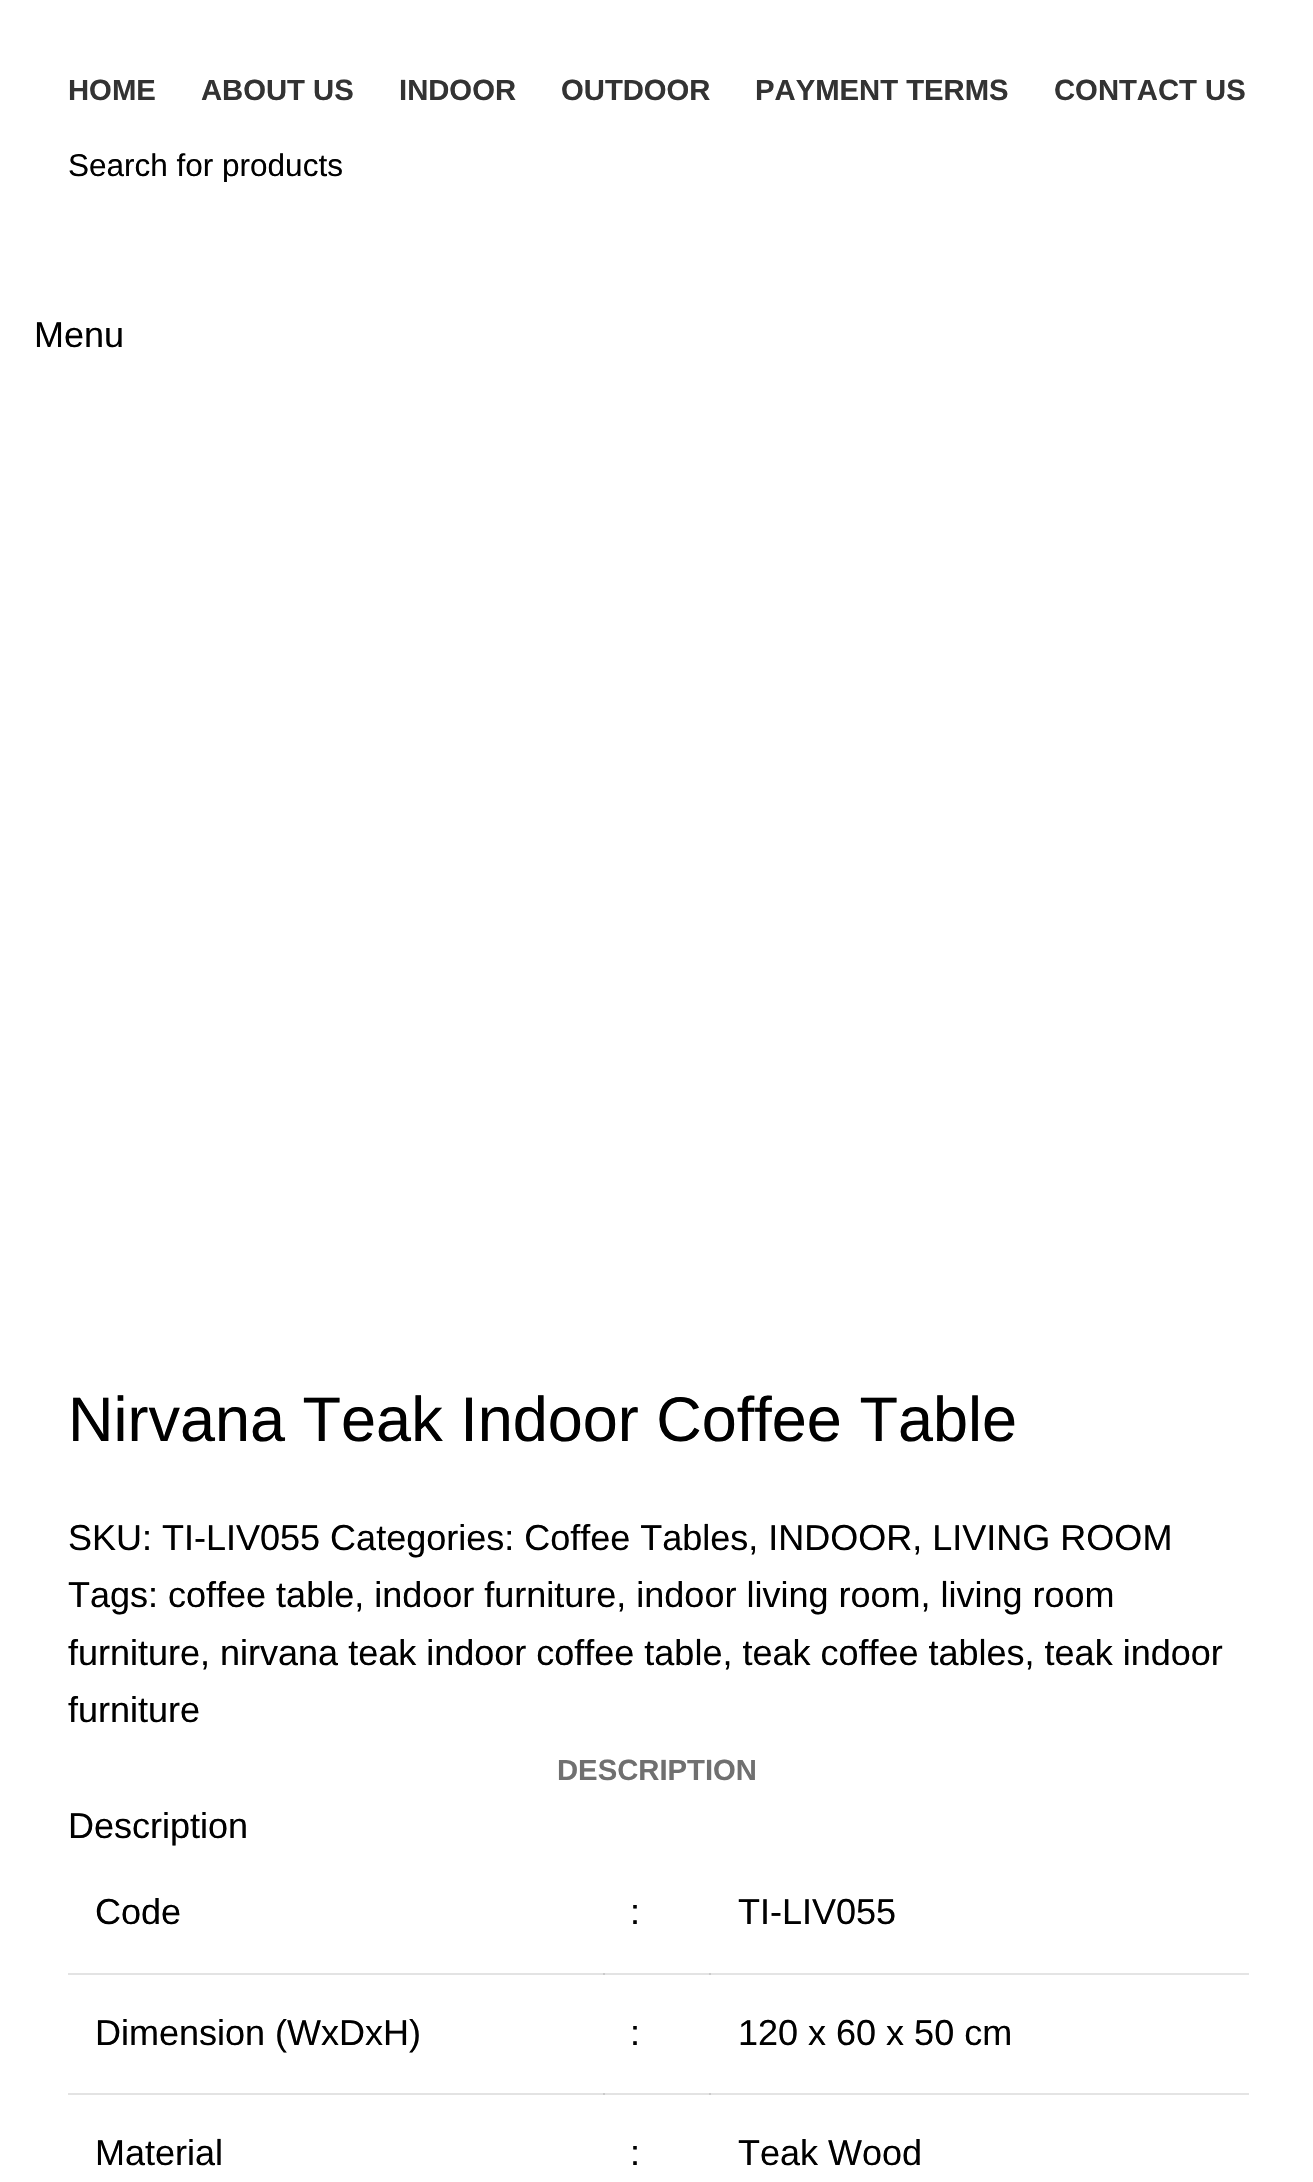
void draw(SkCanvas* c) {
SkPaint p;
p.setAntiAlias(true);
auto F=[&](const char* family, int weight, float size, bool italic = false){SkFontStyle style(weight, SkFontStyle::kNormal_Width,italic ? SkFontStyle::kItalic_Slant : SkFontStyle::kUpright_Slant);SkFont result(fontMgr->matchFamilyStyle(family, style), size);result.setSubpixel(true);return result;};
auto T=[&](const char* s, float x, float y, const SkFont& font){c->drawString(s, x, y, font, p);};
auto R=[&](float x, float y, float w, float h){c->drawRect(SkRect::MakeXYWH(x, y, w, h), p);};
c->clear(0xffffffff);
p.setColor(0xffe3e3e3);
R(68,1973,643,2);
p.setColor(0xffcacaca);
R(603,1973,2,2);
p.setColor(0xffe3e3e3);
R(68,2093,643,2);
p.setColor(0xffcacaca);
R(603,2093,2,2);
auto f1 = F("Liberation Sans",700,29.25);
p.setColor(0xff333333);
T("HOME",68,100,f1);
T("ABOUT US",201,100,f1);
T("INDOOR",399,100,f1);
T("OUTDOOR",561,100,f1);
T("PAYMENT TERMS",755,100,f1);
T("CONTACT US",1054,100,f1);
c->save();
c->clipRect(SkRect::MakeXYWH(68,146,1179,36));
auto f2 = F("Liberation Sans",400,31.5);
p.setColor(0xff000000);
T("Search for products",68,176,f2);
c->restore();
auto f3 = F("Liberation Sans",400,36);
T("Menu",34,347,f3);
auto f4 = F("Liberation Sans",400,63);
T("Nirvana Teak Indoor Coffee Table",68,1441,f4);
T("SKU: TI-LIV055 Categories: Coffee Tables, INDOOR, LIVING ROOM",68,1550,f3);
T("Tags: coffee table, indoor furniture, indoor living room, living room",68,1607,f3);
T("furniture, nirvana teak indoor coffee table, teak coffee tables, teak indoor",68,1665,f3);
T("furniture",68,1722,f3);
p.setColor(0xff707070);
T("DESCRIPTION",557,1780,f1);
p.setColor(0xff000000);
T("Description",68,1838,f3);
T("Code",95,1924,f3);
T(":",630,1924,f3);
p.setColor(0xffe4e4e4);
R(709,1973,540,2);
p.setColor(0xffcbcbcb);
R(709,1973,2,2);
p.setColor(0xff000000);
T("TI-LIV055",738,1924,f3);
T("Dimension (WxDxH)",95,2045,f3);
T(":",630,2045,f3);
p.setColor(0xffe4e4e4);
R(709,2093,540,2);
p.setColor(0xffcbcbcb);
R(709,2093,2,2);
p.setColor(0xff000000);
T("120 x 60 x 50 cm",738,2045,f3);
T("Material",95,2165,f3);
T(":",630,2165,f3);
T("Teak Wood",738,2165,f3);
}
